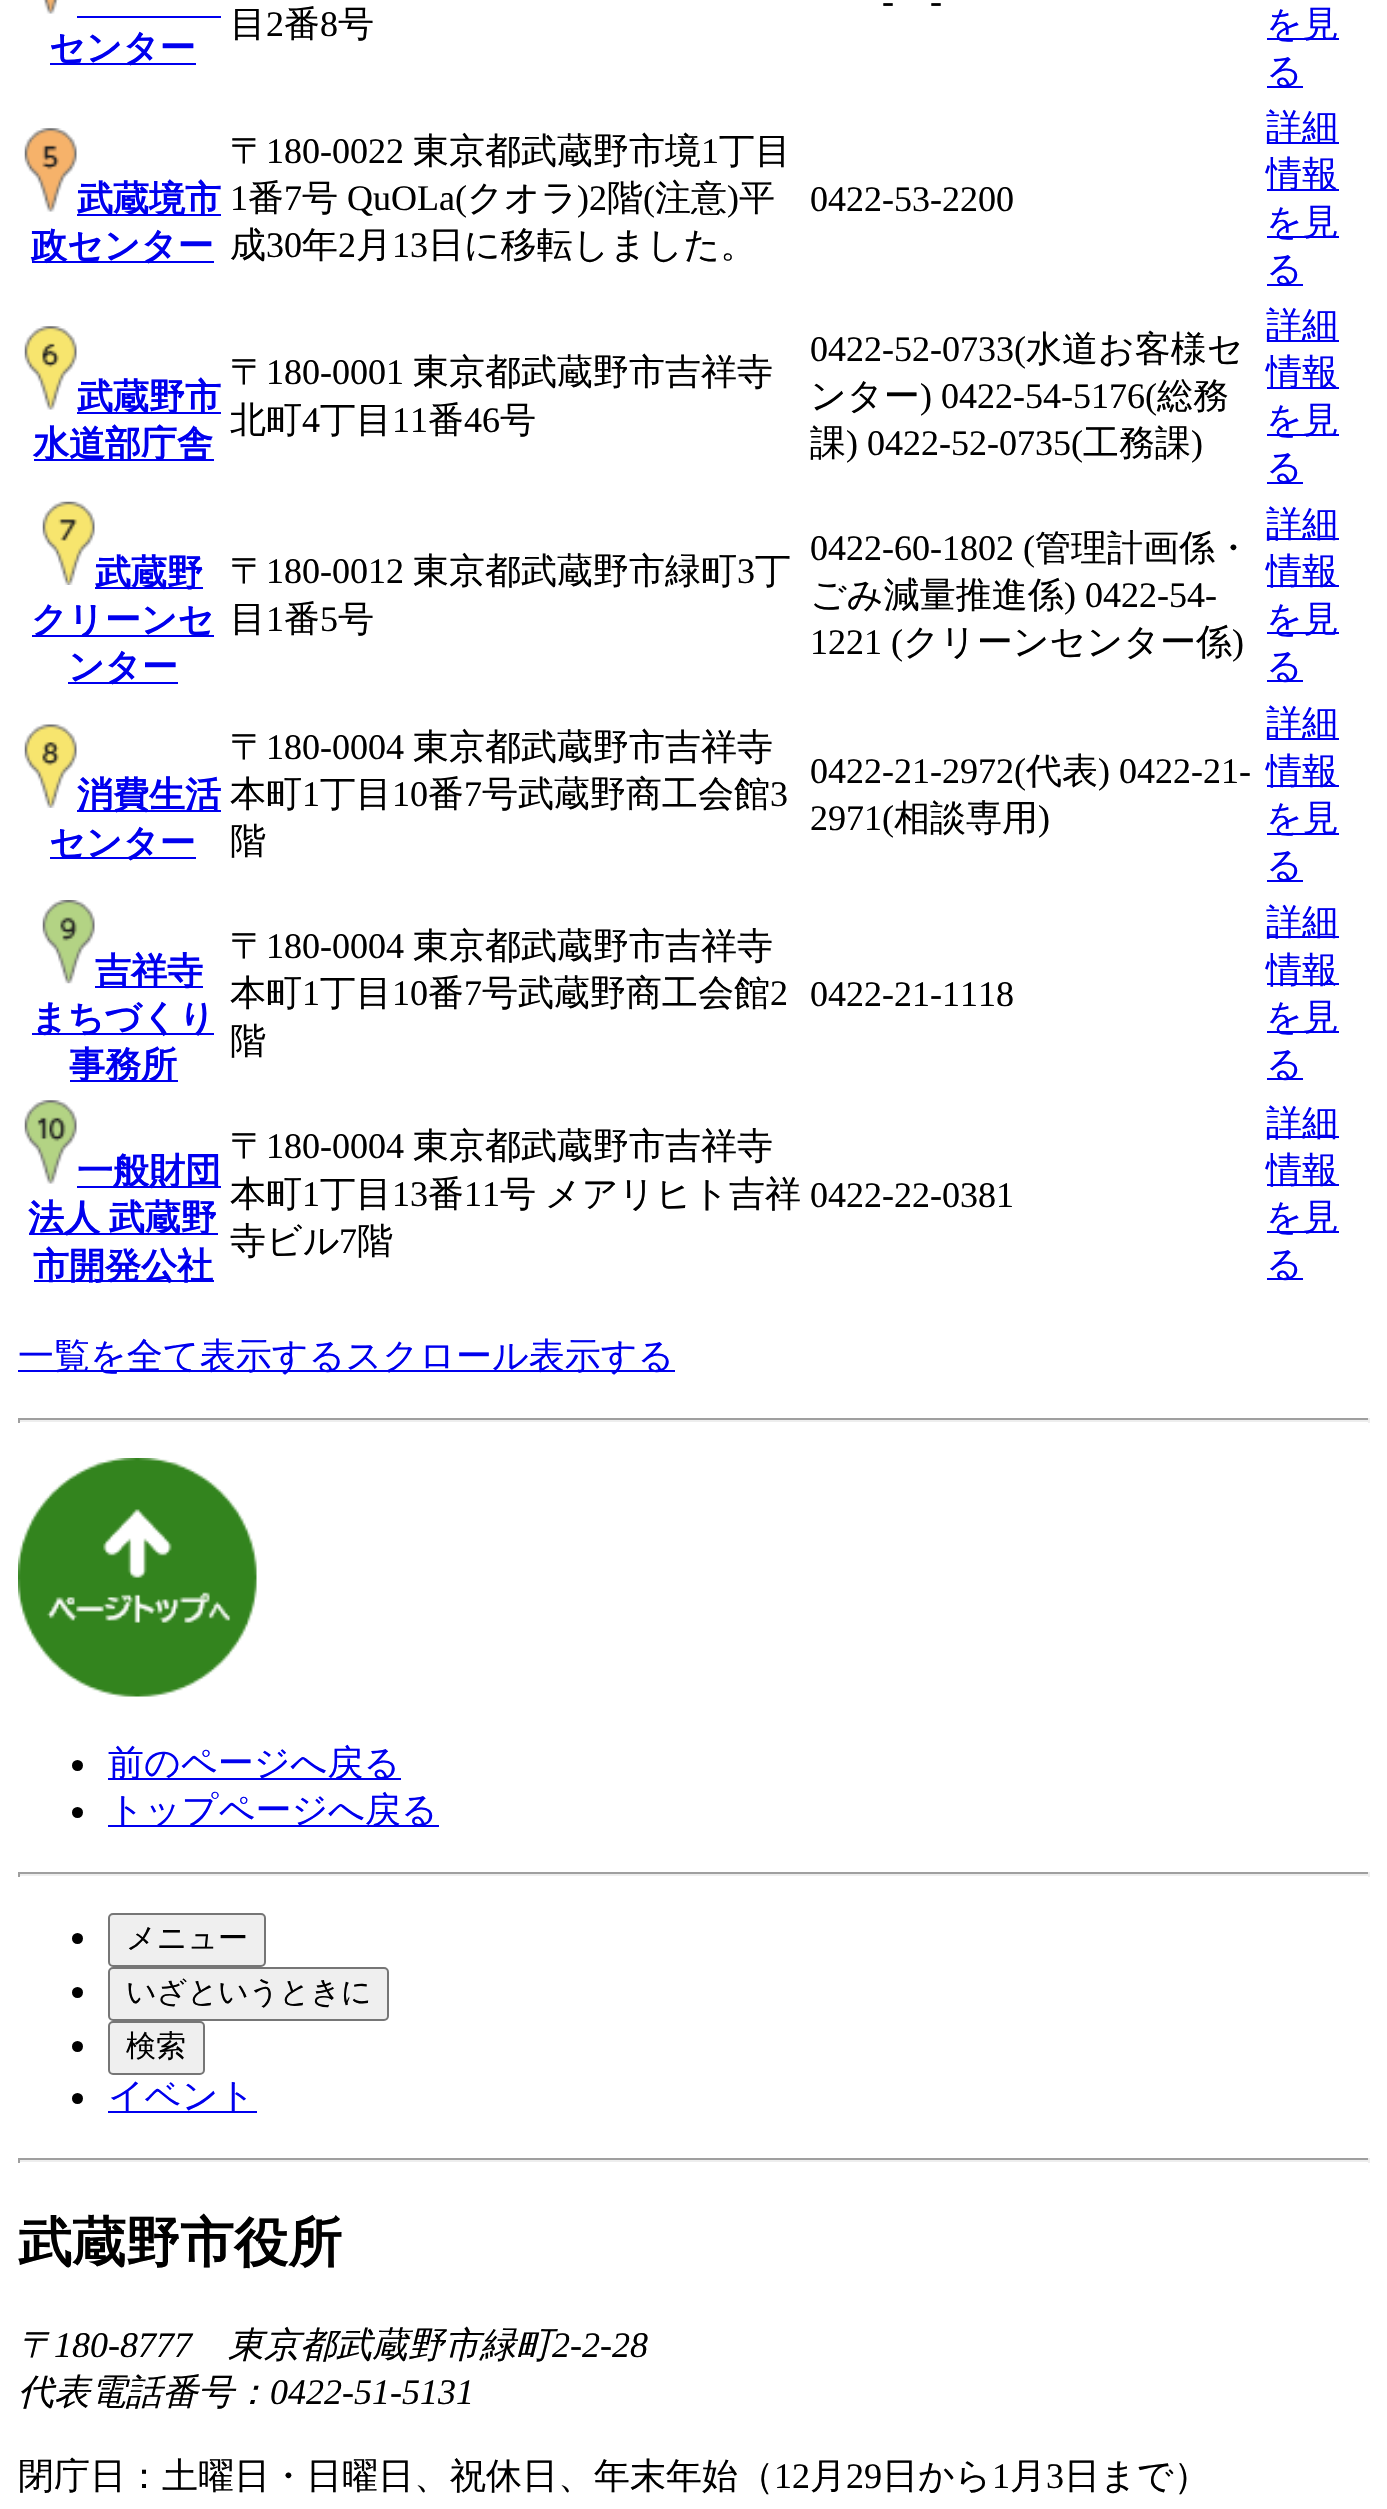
void draw(SkCanvas* c) {
SkPaint p;
p.setAntiAlias(true);
auto F=[&](const char* family, int weight, float size, bool italic = false){SkFontStyle style(weight, SkFontStyle::kNormal_Width,italic ? SkFontStyle::kItalic_Slant : SkFontStyle::kUpright_Slant);SkFont result(fontMgr->matchFamilyStyle(family, style), size);result.setSubpixel(true);return result;};
auto T=[&](const char* s, float x, float y, const SkFont& font){c->drawString(s, x, y, font, p);};
auto L=[&](const char* s, float x, float y, const SkFont& font, const SkPaint& ink, float letter, float word){std::vector<SkGlyphID> glyphs(font.countText(s, strlen(s), SkTextEncoding::kUTF8));std::vector<float> xs(glyphs.size());font.textToGlyphs(s, strlen(s), SkTextEncoding::kUTF8, glyphs);font.getXPos(glyphs, xs, x);float extra = 0;for (size_t i = 0; i < glyphs.size(); i++) {xs[i] += extra;extra += letter + word * (glyphs[i] == font.unicharToGlyph(' '));}c->drawTextBlob(SkTextBlob::MakeFromPosHGlyphs(glyphs, xs, y, font), 0, 0, ink);};
auto R=[&](float x, float y, float w, float h){c->drawRect(SkRect::MakeXYWH(x, y, w, h), p);};
auto I=[&](const char* path, float x, float y, float w, float h){auto image = SkImages::DeferredFromEncodedData(SkData::MakeFromFileName(path));c->drawImageRect(image, SkRect::MakeXYWH(x, y, w, h), SkSamplingOptions());};
c->clear(0xffffffff);
auto f1 = F("Liberation Serif",400,36);
p.setColor(0xff000000);
T("-",882,13,f1);
T("-",930,13,f1);
I("1.png",43,0,16,14);
p.setColor(0xff0000ee);
R(50,63,146,2);
auto f2 = F("WenQuanYi Zen Hei",700,36);
T("センター",49,60,f2);
R(77,16,144,2);
auto f3 = F("WenQuanYi Zen Hei",500,36);
p.setColor(0xff000000);
T("目",230,36,f3);
T("2",266,36,f1);
T("番",284,36,f3);
T("8",320,36,f1);
T("号",338,36,f3);
p.setColor(0xff0000ee);
R(1267,38,72,2);
T("を見",1266,36,f3);
R(1267,86,36,2);
T("る",1266,83,f3);
I("2.png",24,128,53,84);
R(77,214,144,2);
T("武蔵境市",77,211,f2);
R(32,261,182,2);
T("政センター",31,258,f2);
p.setColor(0xff000000);
T("〒",230,163,f3);
T("180-0022",266,163,f1);
T("東京都武蔵野市境",413,163,f3);
T("1",701,163,f1);
T("丁目",719,163,f3);
T("1",230,210,f1);
T("番",248,210,f3);
T("7",284,210,f1);
T("号",302,210,f3);
T("QuOLa(",347,210,f1);
T("クオラ",467,210,f3);
T(")2",577,210,f1);
T("階",607,210,f3);
T("(",643,210,f1);
T("注意",655,210,f3);
T(")",727,210,f1);
T("平",739,210,f3);
T("成",230,257,f3);
T("30",266,257,f1);
T("年",302,257,f3);
T("2",338,257,f1);
T("月",356,257,f3);
T("13",392,257,f1);
T("日に移転しました。",428,257,f3);
T("0422-53-2200",810,211,f1);
p.setColor(0xff0000ee);
R(1267,142,72,2);
T("詳細",1266,139,f3);
R(1267,189,72,2);
T("情報",1266,186,f3);
R(1267,236,72,2);
T("を見",1266,234,f3);
R(1267,284,36,2);
T("る",1266,281,f3);
I("3.png",24,326,53,84);
R(77,412,144,2);
T("武蔵野市",77,409,f2);
R(34,459,180,2);
T("水道部庁舎",33,456,f2);
p.setColor(0xff000000);
T("〒",230,384,f3);
T("180-0001",266,384,f1);
T("東京都武蔵野市吉祥寺",413,384,f3);
T("北町",230,432,f3);
T("4",302,432,f1);
T("丁目",320,432,f3);
T("11",392,432,f1);
T("番",428,432,f3);
T("46",464,432,f1);
T("号",500,432,f3);
T("0422-52-0733(",810,361,f1);
T("水道お客様セ",1026,361,f3);
T("ンター",810,408,f3);
T(") 0422-54-5176(",920,408,f1);
T("総務",1157,408,f3);
T("課",810,455,f3);
T(") 0422-52-0735(",846,455,f1);
T("工務課",1083,455,f3);
T(")",1191,455,f1);
p.setColor(0xff0000ee);
R(1267,340,72,2);
T("詳細",1266,337,f3);
R(1267,387,72,2);
T("情報",1266,384,f3);
R(1267,434,72,2);
T("を見",1266,432,f3);
R(1267,482,36,2);
T("る",1266,479,f3);
I("4.png",42,501,53,84);
R(95,587,108,2);
T("武蔵野",95,585,f2);
R(32,635,182,2);
T("クリーンセ",31,632,f2);
R(68,682,110,2);
T("ンター",68,679,f2);
p.setColor(0xff000000);
T("〒",230,583,f3);
T("180-0012",266,583,f1);
T("東京都武蔵野市緑町",413,583,f3);
T("3",737,583,f1);
T("丁",755,583,f3);
T("目",230,631,f3);
T("1",266,631,f1);
T("番",284,631,f3);
T("5",320,631,f1);
T("号",338,631,f3);
T("0422-60-1802 (",810,560,f1);
T("管理計画係・",1035,560,f3);
T("ごみ減量推進係",810,607,f3);
T(") 0422-54-",1064,607,f1);
T("1221 (",810,654,f1);
T("クリーンセンター係",903,654,f3);
T(")",1232,654,f1);
p.setColor(0xff0000ee);
R(1267,538,72,2);
T("詳細",1266,536,f3);
R(1267,585,72,2);
T("情報",1266,583,f3);
R(1267,632,72,2);
T("を見",1266,631,f3);
R(1267,680,36,2);
T("る",1266,678,f3);
I("5.png",24,724,53,84);
R(77,810,144,2);
T("消費生活",77,807,f2);
R(50,857,146,2);
T("センター",49,855,f2);
p.setColor(0xff000000);
T("〒",230,759,f3);
T("180-0004",266,759,f1);
T("東京都武蔵野市吉祥寺",413,759,f3);
T("本町",230,806,f3);
T("1",302,806,f1);
T("丁目",320,806,f3);
T("10",392,806,f1);
T("番",428,806,f3);
T("7",464,806,f1);
T("号武蔵野商工会館",482,806,f3);
T("3",770,806,f1);
T("階",230,853,f3);
T("0422-21-2972(",810,783,f1);
T("代表",1026,783,f3);
T(") 0422-21-",1098,783,f1);
T("2971(",810,830,f1);
T("相談専用",894,830,f3);
T(")",1038,830,f1);
p.setColor(0xff0000ee);
R(1267,738,72,2);
T("詳細",1266,735,f3);
R(1267,785,72,2);
T("情報",1266,783,f3);
R(1267,833,72,2);
T("を見",1266,830,f3);
R(1267,880,36,2);
T("る",1266,877,f3);
I("6.png",42,900,53,84);
R(95,986,108,2);
T("吉祥寺",95,983,f2);
R(32,1033,182,2);
T("まちづくり",31,1030,f2);
R(70,1080,108,2);
T("事務所",69,1077,f2);
p.setColor(0xff000000);
T("〒",230,958,f3);
T("180-0004",266,958,f1);
T("東京都武蔵野市吉祥寺",413,958,f3);
T("本町",230,1005,f3);
T("1",302,1005,f1);
T("丁目",320,1005,f3);
T("10",392,1005,f1);
T("番",428,1005,f3);
T("7",464,1005,f1);
T("号武蔵野商工会館",482,1005,f3);
T("2",770,1005,f1);
T("階",230,1053,f3);
T("0422-21-1118",810,1006,f1);
p.setColor(0xff0000ee);
R(1267,936,72,2);
T("詳細",1266,934,f3);
R(1267,983,72,2);
T("情報",1266,982,f3);
R(1267,1031,72,2);
T("を見",1266,1029,f3);
R(1267,1078,36,2);
T("る",1266,1076,f3);
I("7.png",24,1100,53,84);
R(77,1186,144,2);
T("一般財団",77,1183,f2);
R(29,1233,189,2);
L("法人 武蔵野",28,1230,f2,p,0,-2);
R(34,1280,180,2);
T("市開発公社",33,1278,f2);
p.setColor(0xff000000);
T("〒",230,1158,f3);
T("180-0004",266,1158,f1);
T("東京都武蔵野市吉祥寺",413,1158,f3);
T("本町",230,1206,f3);
T("1",302,1206,f1);
T("丁目",320,1206,f3);
T("13",392,1206,f1);
T("番",428,1206,f3);
T("11",464,1206,f1);
L("号 メアリヒト吉祥",500,1206,f3,p,0,-2);
T("寺ビル",230,1253,f3);
T("7",339,1253,f1);
T("階",357,1253,f3);
T("0422-22-0381",810,1207,f1);
p.setColor(0xff0000ee);
R(1267,1136,72,2);
T("詳細",1266,1135,f3);
R(1267,1184,72,2);
T("情報",1266,1182,f3);
R(1267,1231,72,2);
T("を見",1266,1229,f3);
R(1267,1278,36,2);
T("る",1266,1276,f3);
R(18,1370,657,2);
T("一覧を全て表示するスクロール表示する",18,1368,f3);
p.setColor(0xff9f9f9f);
R(18,1418,1352,2);
p.setColor(0xffeeeeee);
R(1368,1418,2,5);
R(18,1420,1352,2);
p.setColor(0xff9f9f9f);
R(18,1418,2,5);
I("8.png",18,1458,239,239);
p.setColor(0xff000000);
c->drawCircle(77.5,1765.5,5.5,p);
p.setColor(0xff0000ee);
R(108,1778,293,2);
T("前のページへ戻る",108,1775,f3);
p.setColor(0xff000000);
c->drawCircle(77.5,1812.5,5.5,p);
p.setColor(0xff0000ee);
R(108,1825,331,2);
T("トップページへ戻る",108,1822,f3);
p.setColor(0xff9f9f9f);
R(18,1872,1352,2);
p.setColor(0xffeeeeee);
R(1368,1872,2,5);
R(18,1874,1352,2);
p.setColor(0xff9f9f9f);
R(18,1872,2,5);
p.setColor(0xff000000);
c->drawCircle(77.5,1938.5,5.5,p);
p.setColor(0xffefefef);
c->drawRoundRect(SkRect::MakeXYWH(109,1914,156,52),4,4,p);
p.setStroke(true);
p.setStrokeWidth(2);
p.setColor(0xff767676);
c->drawRoundRect(SkRect::MakeXYWH(109,1914,156,52),4,4,p);
auto f4 = F("WenQuanYi Zen Hei",500,30);
p.setStroke(false);
p.setColor(0xff000000);
T("メニュー",126,1948,f4);
c->drawCircle(77.5,1992.5,5.5,p);
p.setColor(0xffefefef);
c->drawRoundRect(SkRect::MakeXYWH(109,1968,279,52),4,4,p);
p.setStroke(true);
p.setColor(0xff767676);
c->drawRoundRect(SkRect::MakeXYWH(109,1968,279,52),4,4,p);
p.setStroke(false);
p.setColor(0xff000000);
T("いざというときに",126,2002,f4);
c->drawCircle(77.5,2046.5,5.5,p);
p.setColor(0xffefefef);
c->drawRoundRect(SkRect::MakeXYWH(109,2022,95,52),4,4,p);
p.setStroke(true);
p.setColor(0xff767676);
c->drawRoundRect(SkRect::MakeXYWH(109,2022,95,52),4,4,p);
p.setStroke(false);
p.setColor(0xff000000);
T("検索",126,2056,f4);
c->drawCircle(77.5,2098.5,5.5,p);
p.setColor(0xff0000ee);
R(108,2111,149,2);
T("イベント",108,2108,f3);
p.setColor(0xff9f9f9f);
R(18,2158,1352,2);
p.setColor(0xffeeeeee);
R(1368,2158,2,5);
R(18,2160,1352,2);
p.setColor(0xff9f9f9f);
R(18,2158,2,5);
auto f5 = F("WenQuanYi Zen Hei",700,54);
p.setColor(0xff000000);
T("武蔵野市役所",18,2261,f5);
auto f6 = F("WenQuanYi Zen Hei",500,36,true);
T("〒",18,2357,f6);
auto f7 = F("Liberation Serif",400,36,true);
T("180-8777",54,2357,f7);
T("東京都武蔵野市緑町",228,2357,f6);
T("2-2-28",552,2357,f7);
T("代表電話番号：",18,2404,f6);
T("0422-51-5131",270,2404,f7);
T("閉庁日：土曜日・日曜日、祝休日、年末年始（",18,2488,f3);
T("12",774,2488,f1);
T("月",810,2488,f3);
T("29",846,2488,f1);
T("日から",882,2488,f3);
T("1",992,2488,f1);
T("月",1010,2488,f3);
T("3",1046,2488,f1);
T("日まで）",1064,2488,f3);
}
